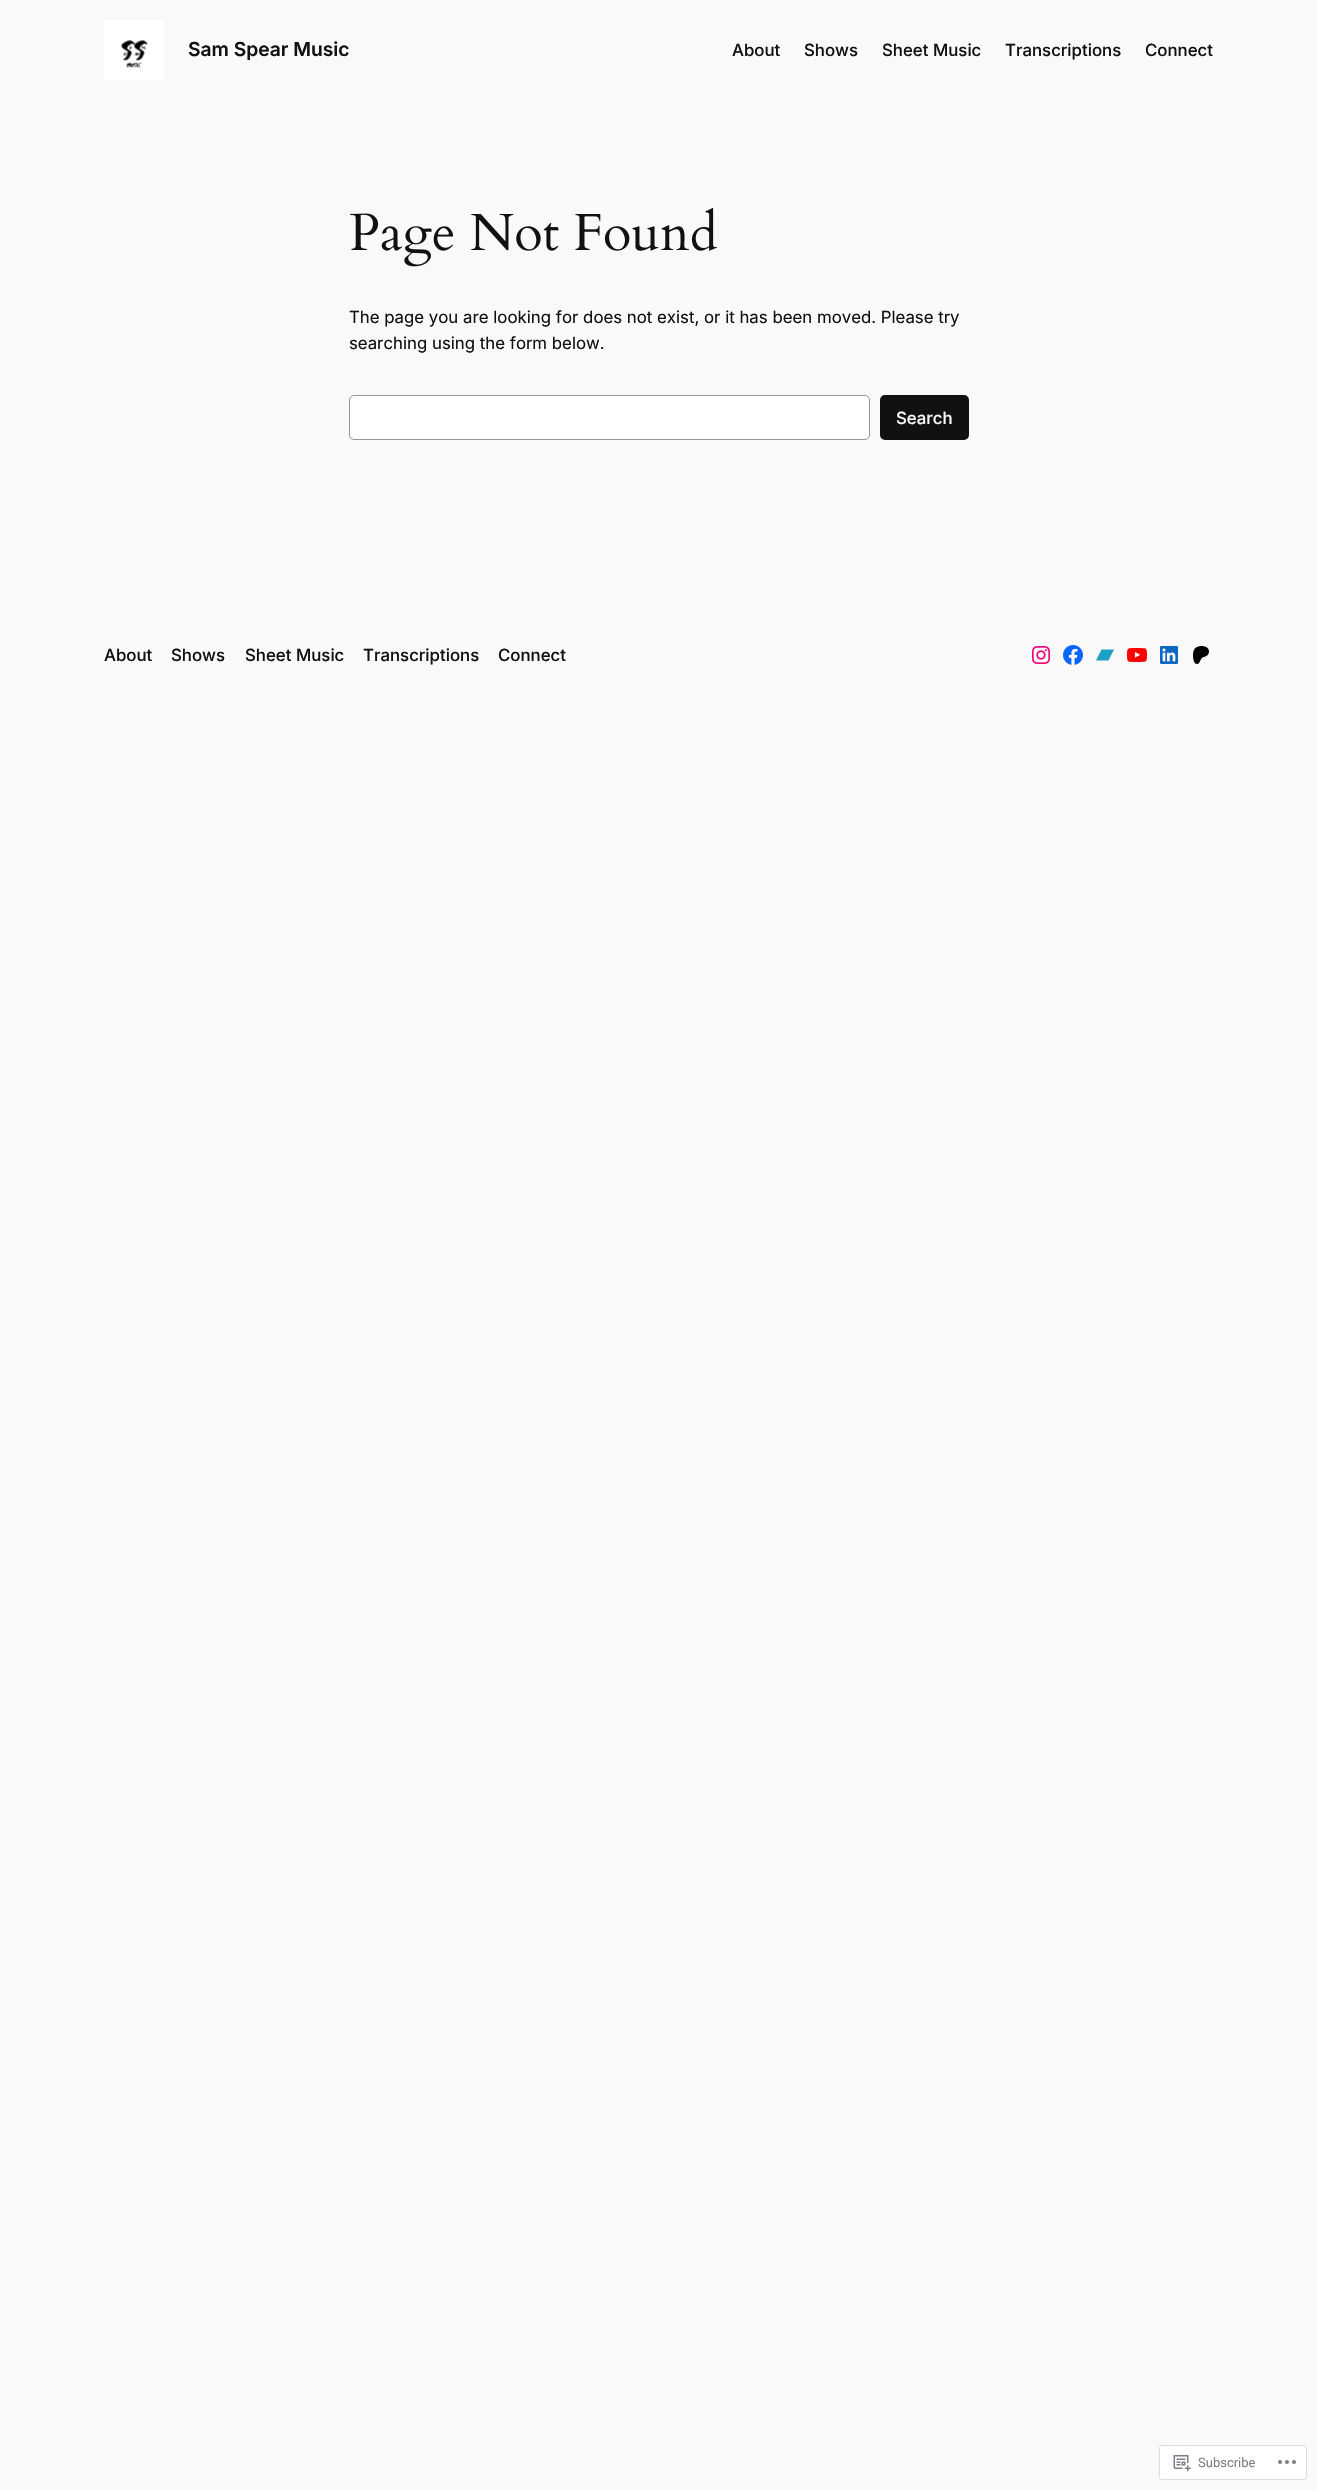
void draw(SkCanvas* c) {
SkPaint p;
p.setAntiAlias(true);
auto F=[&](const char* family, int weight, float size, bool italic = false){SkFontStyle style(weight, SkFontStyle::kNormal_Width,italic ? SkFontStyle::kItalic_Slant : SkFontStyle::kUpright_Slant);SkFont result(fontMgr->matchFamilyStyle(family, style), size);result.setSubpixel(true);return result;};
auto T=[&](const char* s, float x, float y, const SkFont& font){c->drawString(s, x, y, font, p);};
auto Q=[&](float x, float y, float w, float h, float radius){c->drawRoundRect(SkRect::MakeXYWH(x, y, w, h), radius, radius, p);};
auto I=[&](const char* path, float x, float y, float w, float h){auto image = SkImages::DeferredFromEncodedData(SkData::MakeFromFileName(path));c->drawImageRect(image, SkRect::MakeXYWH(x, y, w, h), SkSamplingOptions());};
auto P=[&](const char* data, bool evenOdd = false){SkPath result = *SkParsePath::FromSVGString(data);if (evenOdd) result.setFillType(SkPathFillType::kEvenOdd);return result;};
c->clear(0xfff9f9f9);
I("1.png",104,20,60,60);
auto f1 = F("Inter",600,19.25);
p.setColor(0xff111111);
T("Sam Spear Music",188,56,f1);
auto f2 = F("Inter",500,16.8);
T("About",732,56,f2);
T("Shows",804,56,f2);
T("Sheet Music",882,56,f2);
T("Transcriptions",1005,56,f2);
T("Connect",1145,56,f2);
I("2.png",350,208,367,59);
auto f3 = F("Inter",400,16.8);
T("The page you are looking for does not exist, or it has been moved. Please try",349,323,f3);
T("searching using the form below.",349,349,f3);
p.setColor(0xffffffff);
c->drawRoundRect(SkRect::MakeXYWH(349.5,395.5,520,44),4.5,4.5,p);
p.setStroke(true);
p.setStrokeWidth(1);
p.setColor(0xff949494);
c->drawRoundRect(SkRect::MakeXYWH(349.5,395.5,520,44),4.5,4.5,p);
p.setStroke(false);
p.setColor(0xff111111);
Q(880,395,89,45,5);
p.setColor(0xfff9f9f9);
T("Search",896,424,f2);
p.setColor(0xff111111);
T("About",104,661,f2);
T("Shows",171,661,f2);
T("Sheet Music",245,661,f2);
T("Transcriptions",363,661,f2);
T("Connect",498,661,f2);
I("3.png",1032,646,18,18);
I("4.png",1063,645,20,20);
p.setColor(0xff1ea0c3);
c->drawPath(P("M1108.5 660.5h-12.5l5.5-11h12.5l-5.5 11"),p);
I("5.png",1127,648,20,14);
I("6.png",1160,646,18,18);
I("7.png",1193,646,16,18);
p.setColor(0xffffffff);
c->drawRoundRect(SkRect::MakeXYWH(1159.5,2445.5,147,34),2.5,2.5,p);
p.setStroke(true);
p.setColor(0xffdddddf);
c->drawRoundRect(SkRect::MakeXYWH(1159.5,2445.5,147,34),2.5,2.5,p);
I("8.png",1173,2455,18,17);
auto f4 = F("Roboto",400,13);
p.setStroke(false);
p.setColor(0xff7b7f84);
T("Subscribe",1198,2467,f4);
I("9.png",1278,2460,18,4);
}
